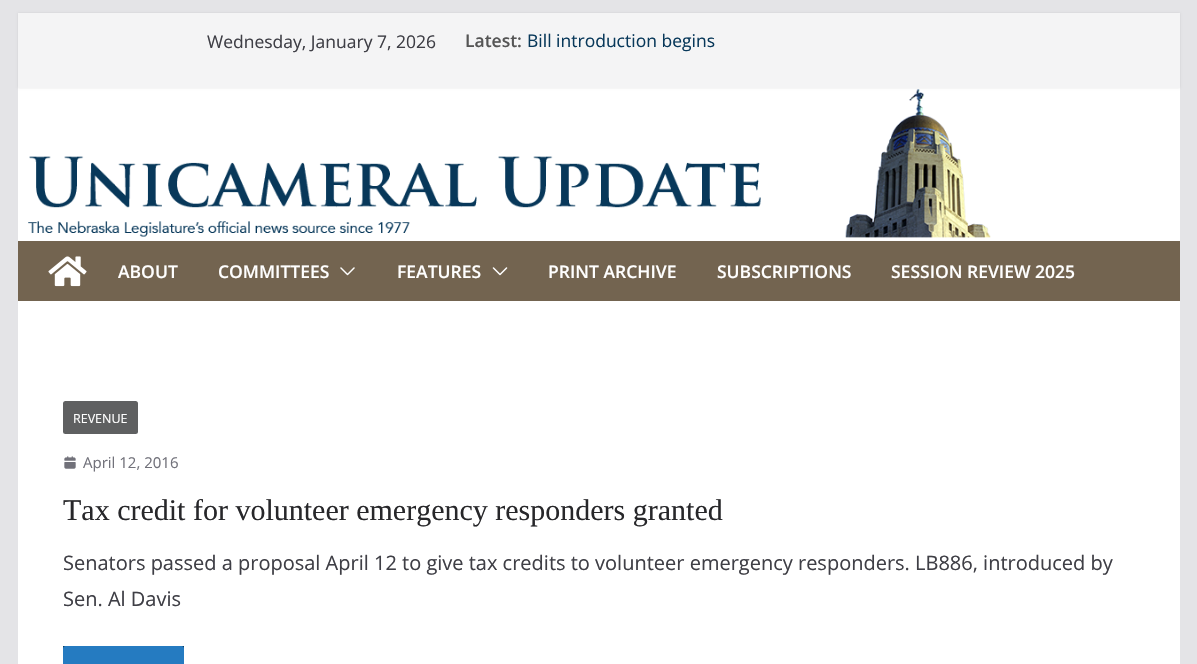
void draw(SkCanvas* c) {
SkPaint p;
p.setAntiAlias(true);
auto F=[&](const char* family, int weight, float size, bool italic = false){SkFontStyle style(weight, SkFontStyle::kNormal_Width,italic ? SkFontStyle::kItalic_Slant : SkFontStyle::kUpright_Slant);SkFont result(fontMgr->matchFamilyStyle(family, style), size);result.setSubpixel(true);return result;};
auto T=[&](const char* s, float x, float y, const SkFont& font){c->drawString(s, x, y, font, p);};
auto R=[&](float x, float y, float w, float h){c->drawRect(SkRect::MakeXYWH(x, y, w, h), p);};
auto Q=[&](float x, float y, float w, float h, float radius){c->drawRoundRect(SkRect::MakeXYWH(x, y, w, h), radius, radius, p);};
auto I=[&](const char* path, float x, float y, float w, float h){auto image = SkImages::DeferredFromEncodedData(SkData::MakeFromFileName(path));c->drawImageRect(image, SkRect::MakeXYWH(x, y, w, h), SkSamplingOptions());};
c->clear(0xffe4e4e7);
p.setColor(0xffffffff);
R(18,88,1162,153);
p.setColor(0x1a000000);
p.setMaskFilter(SkMaskFilter::MakeBlur(kNormal_SkBlurStyle, 1));
c->drawRect(SkRect::MakeXYWH(18,13,1162,75),p);
p.setMaskFilter(nullptr);
p.setColor(0xfff4f4f5);
R(18,13,1162,75);
auto f1 = F("Open Sans",400,17.5);
p.setColor(0xff3f3f46);
T("Wednesday, January 7, 2026",207,48,f1);
auto f2 = F("Open Sans",600,17.5);
p.setColor(0xff555555);
T("Latest:",465,47,f2);
p.setColor(0xff08385a);
T("Bill introduction begins",527,47,f1);
I("1.png",28,89,963,149);
p.setColor(0xff736450);
R(18,241,1162,60);
I("2.png",48,256,39,31);
p.setColor(0xffffffff);
T("ABOUT",118,278,f2);
T("COMMITTEES",218,278,f2);
I("3.png",340,267,15,9);
T("FEATURES",397,278,f2);
I("4.png",492,267,16,9);
T("PRINT ARCHIVE",548,278,f2);
T("SUBSCRIPTIONS",717,278,f2);
T("SESSION REVIEW 2025",891,278,f2);
R(18,301,1162,363);
p.setColor(0xff5f6061);
Q(63,401,75,33,2.5);
auto f3 = F("Open Sans",400,12.5);
p.setColor(0xffffffff);
T("REVENUE",73,423,f3);
I("5.png",64,456,12,13);
auto f4 = F("Open Sans",400,15);
p.setColor(0xff71717a);
T("April 12, 2016",83,468,f4);
auto f5 = F("Liberation Serif",400,30);
p.setColor(0xff27272a);
T("Tax credit for volunteer emergency responders granted",63,520,f5);
auto f6 = F("Open Sans",400,20);
p.setColor(0xff3f3f46);
T("Senators passed a proposal April 12 to give tax credits to volunteer emergency responders. LB886, introduced by",63,570,f6);
T("Sen. Al Davis",63,606,f6);
p.setColor(0xff08385a);
R(63,646,121,3);
p.setColor(0xff257bc1);
Q(63,646,121,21,2.5);
}
